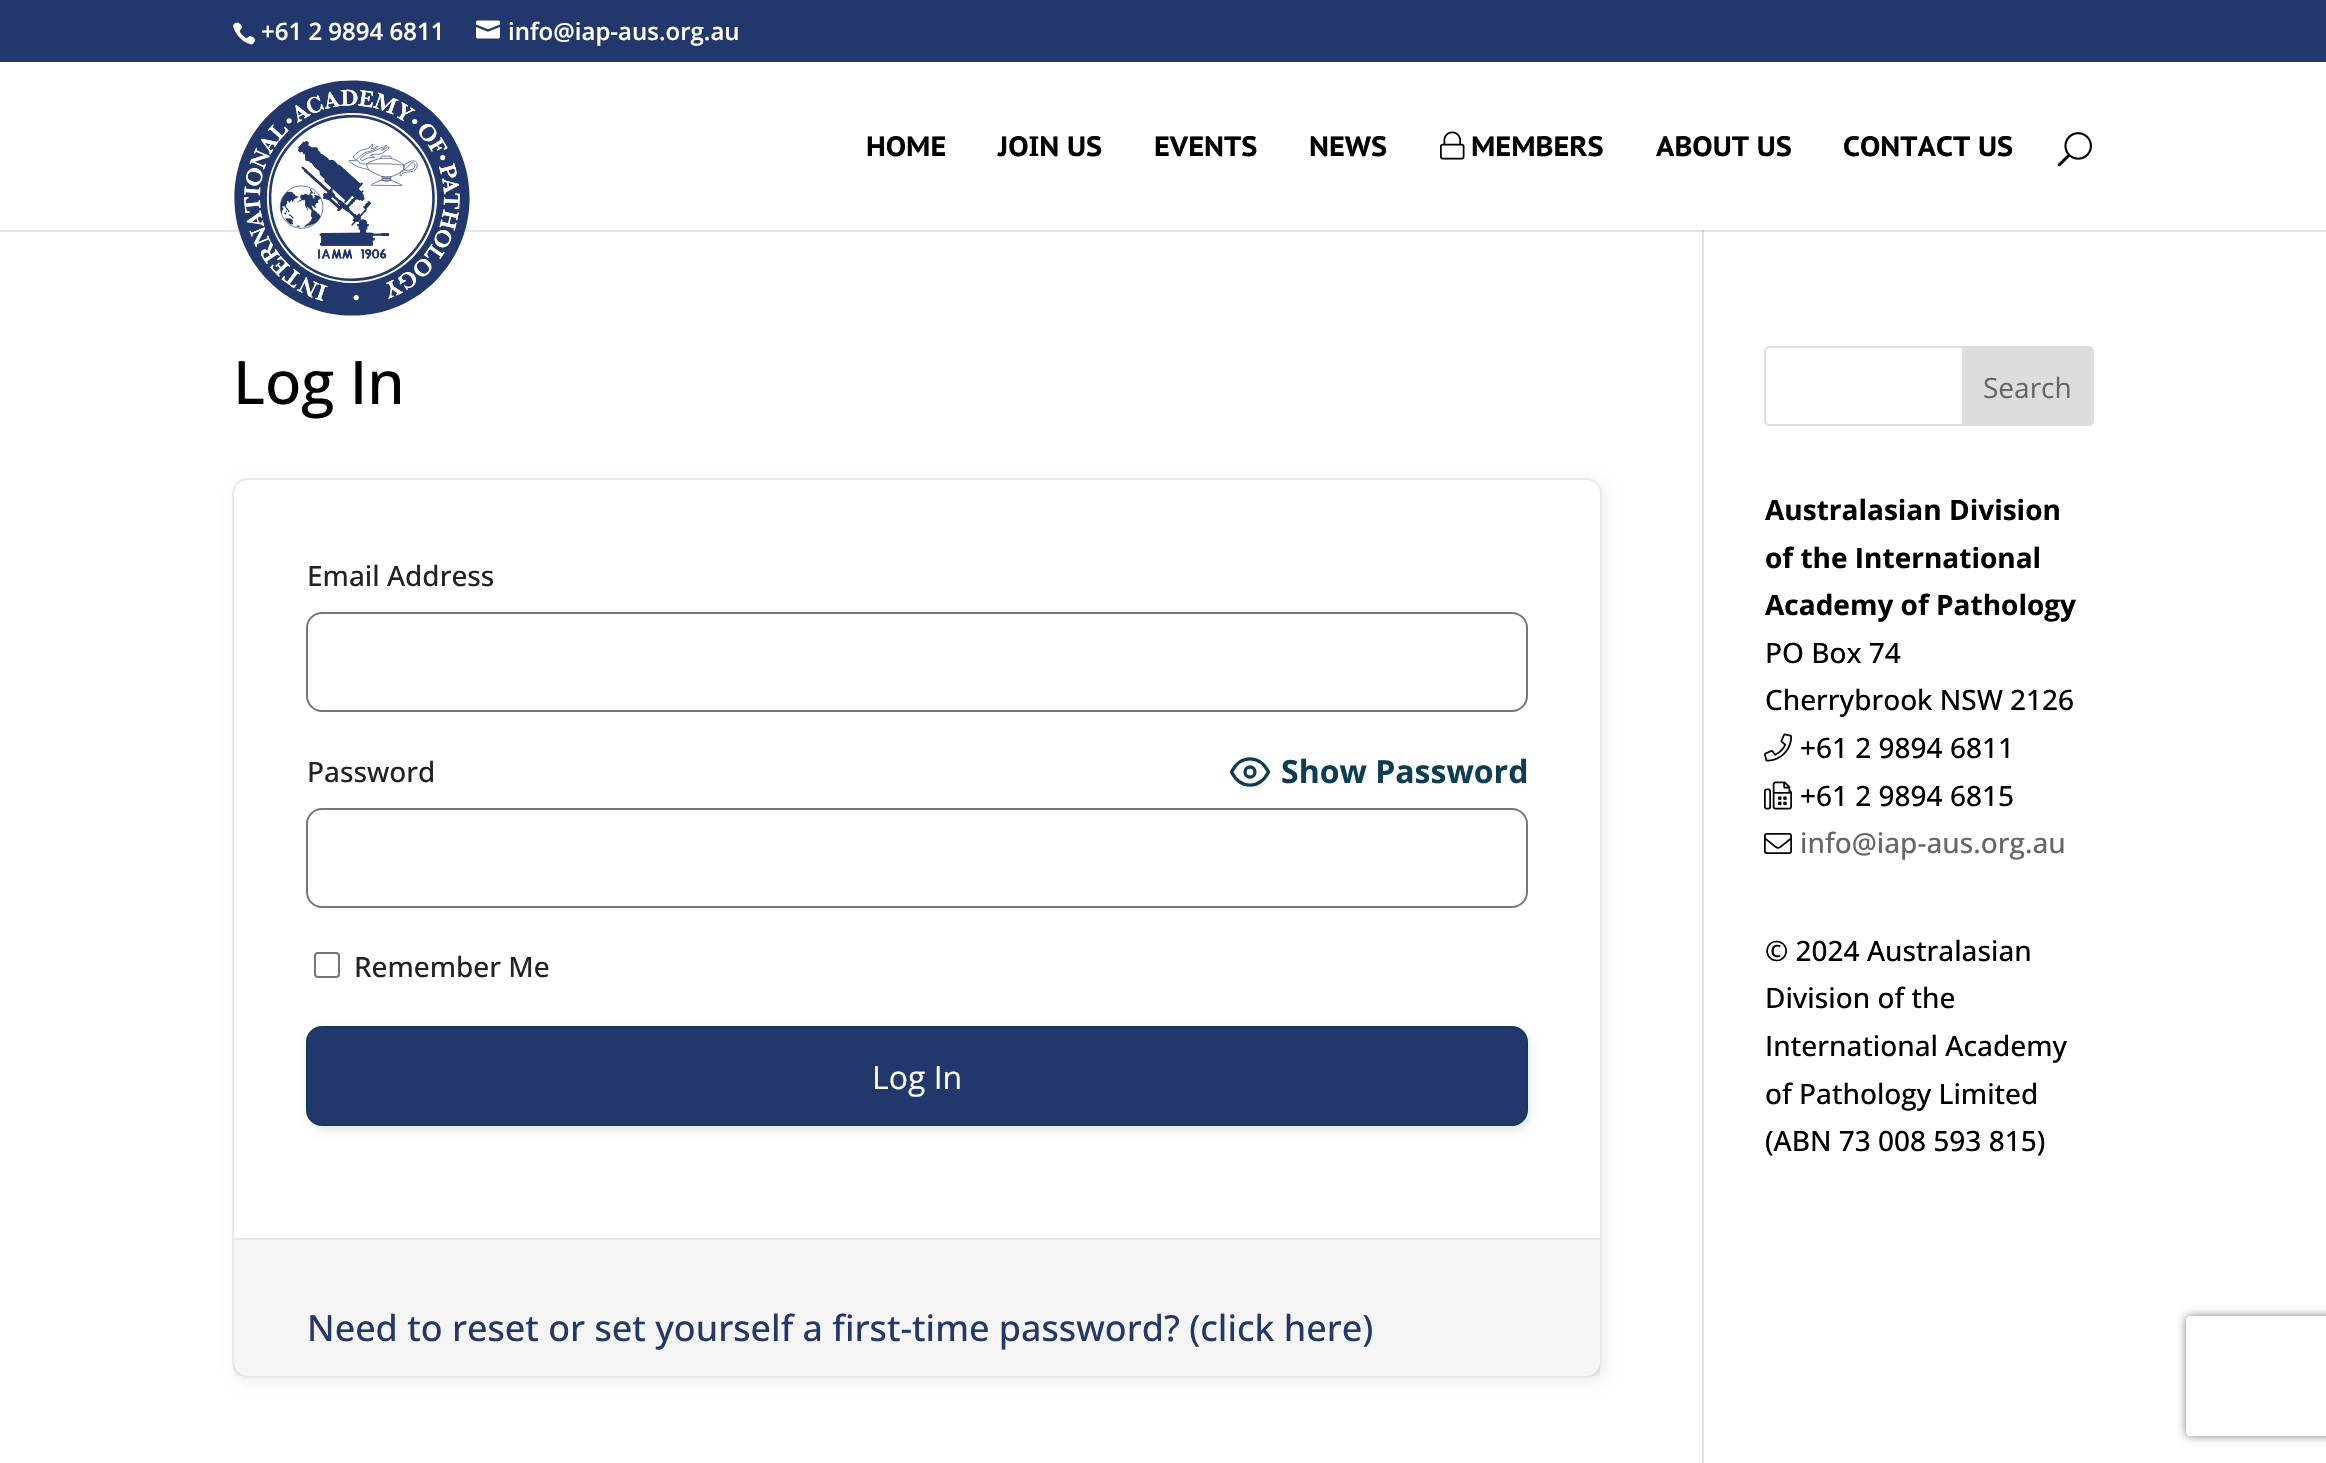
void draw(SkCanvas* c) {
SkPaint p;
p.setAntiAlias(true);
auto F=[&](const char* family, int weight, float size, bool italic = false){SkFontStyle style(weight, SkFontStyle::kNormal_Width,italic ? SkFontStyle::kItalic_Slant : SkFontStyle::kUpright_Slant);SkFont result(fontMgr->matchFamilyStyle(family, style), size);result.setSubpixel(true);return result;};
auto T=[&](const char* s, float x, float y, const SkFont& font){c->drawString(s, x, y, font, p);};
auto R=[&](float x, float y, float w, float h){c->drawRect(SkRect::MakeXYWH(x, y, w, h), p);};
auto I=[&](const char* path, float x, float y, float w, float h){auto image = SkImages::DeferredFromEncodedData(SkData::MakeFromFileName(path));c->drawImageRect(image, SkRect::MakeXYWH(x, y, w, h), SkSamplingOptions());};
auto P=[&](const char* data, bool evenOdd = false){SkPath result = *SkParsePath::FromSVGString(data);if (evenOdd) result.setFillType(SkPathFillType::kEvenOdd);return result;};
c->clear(0xffffffff);
p.setColor(0xffe6e6e6);
R(0,230,2326,2);
p.setColor(0xff22386d);
R(0,0,2326,62);
I("1.png",233,22,22,23);
auto f1 = F("Open Sans",600,24);
p.setColor(0xffffffff);
T("+61 2 9894 6811",261,40,f1);
I("2.png",476,20,24,19);
T("info@iap-aus.org.au",508,40,f1);
I("3.png",234,80,236,236);
auto f2 = F("PT Sans Caption",700,28);
p.setColor(0xff000000);
T("HOME",866,156,f2);
T("JOIN US",998,156,f2);
T("EVENTS",1154,156,f2);
T("NEWS",1309,156,f2);
I("4.png",1440,131,25,29);
T("MEMBERS",1471,156,f2);
T("ABOUT US",1656,156,f2);
T("CONTACT US",1843,156,f2);
I("5.png",2057,132,35,35);
p.setColor(0xffe2e2e2);
R(1702,230,2,1233);
p.setColor(0xffcbcbcb);
R(1702,230,2,2);
auto f3 = F("Open Sans",500,60);
p.setColor(0xff000000);
T("Log In",233,404,f3);
p.setColor(0x12000000);
p.setMaskFilter(SkMaskFilter::MakeBlur(kNormal_SkBlurStyle, 7));
c->drawRoundRect(SkRect::MakeXYWH(236,482,1370,900),16,16,p);
p.setMaskFilter(nullptr);
p.setColor(0xffffffff);
c->drawRoundRect(SkRect::MakeXYWH(233,479,1368,898),15,15,p);
p.setStroke(true);
p.setStrokeWidth(2);
p.setColor(0xffe8e8e8);
c->drawRoundRect(SkRect::MakeXYWH(233,479,1368,898),15,15,p);
auto f4 = F("Open Sans",500,28);
p.setStroke(false);
p.setColor(0xff222222);
T("Email Address",307,586,f4);
p.setStroke(true);
p.setColor(0xff777777);
c->drawRoundRect(SkRect::MakeXYWH(307,613,1220,98),15,15,p);
p.setStroke(false);
p.setColor(0xff222222);
T("Password",307,782,f4);
p.setStroke(true);
p.setStrokeWidth(3.3);
p.setStrokeCap(SkPaint::kRound_Cap);
p.setStrokeJoin(SkPaint::kRound_Join);
p.setColor(0xff0c3d54);
c->drawPath(P("M1231.5 772c9-17.5 28-17.5 37 0c-9 17.5-28 17.5-37 0z"),p);
p.setStrokeCap(SkPaint::kButt_Cap);
p.setStrokeJoin(SkPaint::kMiter_Join);
c->drawCircle(1250,772,5,p);
auto f5 = F("Open Sans",700,32);
p.setStroke(false);
T("Show Password",1281,783,f5);
p.setStroke(true);
p.setStrokeWidth(2);
p.setColor(0xff777777);
c->drawRoundRect(SkRect::MakeXYWH(307,809,1220,98),15,15,p);
p.setColor(0xff767676);
c->drawRoundRect(SkRect::MakeXYWH(315,953,24,24),3,3,p);
p.setStroke(false);
p.setColor(0xff222222);
T("Remember Me",354,977,f4);
p.setColor(0x1a000000);
p.setMaskFilter(SkMaskFilter::MakeBlur(kNormal_SkBlurStyle, 4));
c->drawRoundRect(SkRect::MakeXYWH(308,1030,1222,100),16,16,p);
p.setMaskFilter(nullptr);
p.setColor(0xff22386d);
c->drawRoundRect(SkRect::MakeXYWH(307,1027,1220,98),15,15,p);
p.setStroke(true);
p.setColor(0xff0c3d54);
c->drawRoundRect(SkRect::MakeXYWH(307,1027,1220,98),15,15,p);
auto f6 = F("Open Sans",400,32);
p.setStroke(false);
p.setColor(0xffffffff);
T("Log In",872,1089,f6);
p.setColor(0x0a000000);
R(234,1240,1366,136);
p.setColor(0xffe8e8e8);
R(234,1238,1366,2);
auto f7 = F("Open Sans",500,36);
p.setColor(0xff22386d);
T("Need to reset or set yourself a first-time password? (click here)",307,1341,f7);
p.setStroke(true);
p.setColor(0xffdddddd);
c->drawRoundRect(SkRect::MakeXYWH(1765,347,328,78),5,5,p);
p.setStroke(false);
c->drawPath(P("M1963 347h125c3 0 5 2 5 5v68c0 3-2 5-5 5h-125z"),p);
p.setStroke(true);
c->drawPath(P("M1963 347h125c3 0 5 2 5 5v68c0 3-2 5-5 5h-125z"),p);
auto f8 = F("Open Sans",400,28);
p.setStroke(false);
p.setColor(0xff666666);
T("Search",1983,398,f8);
auto f9 = F("Open Sans",700,28);
p.setColor(0xff000000);
T("Australasian Division",1765,520,f9);
T("of the International",1765,568,f9);
T("Academy of Pathology",1765,615,f9);
T("PO Box 74",1765,663,f4);
T("Cherrybrook NSW 2126",1765,710,f4);
I("6.png",1764,733,29,29);
T("+61 2 9894 6811",1800,758,f4);
I("7.png",1764,781,28,29);
T("+61 2 9894 6815",1800,806,f4);
I("8.png",1764,833,28,21);
p.setColor(0xff666666);
T("info@iap-aus.org.au",1800,853,f4);
p.setColor(0xff000000);
T("© 2024 Australasian",1765,961,f4);
T("Division of the",1765,1008,f4);
T("International Academy",1765,1056,f4);
T("of Pathology Limited",1765,1104,f4);
T("(ABN 73 008 593 815)",1765,1151,f4);
c->save();
c->clipPath(P("M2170 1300h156v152h-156zm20 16h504c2 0 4 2 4 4v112c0 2-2 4-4 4h-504c-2 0-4-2-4-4v-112c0-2 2-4 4-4z",true),true);
p.setColor(0xff808080);
p.setMaskFilter(SkMaskFilter::MakeBlur(kNormal_SkBlurStyle, 5));
c->drawRoundRect(SkRect::MakeXYWH(2186,1316,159,120),4,4,p);
p.setMaskFilter(nullptr);
c->restore();
}
